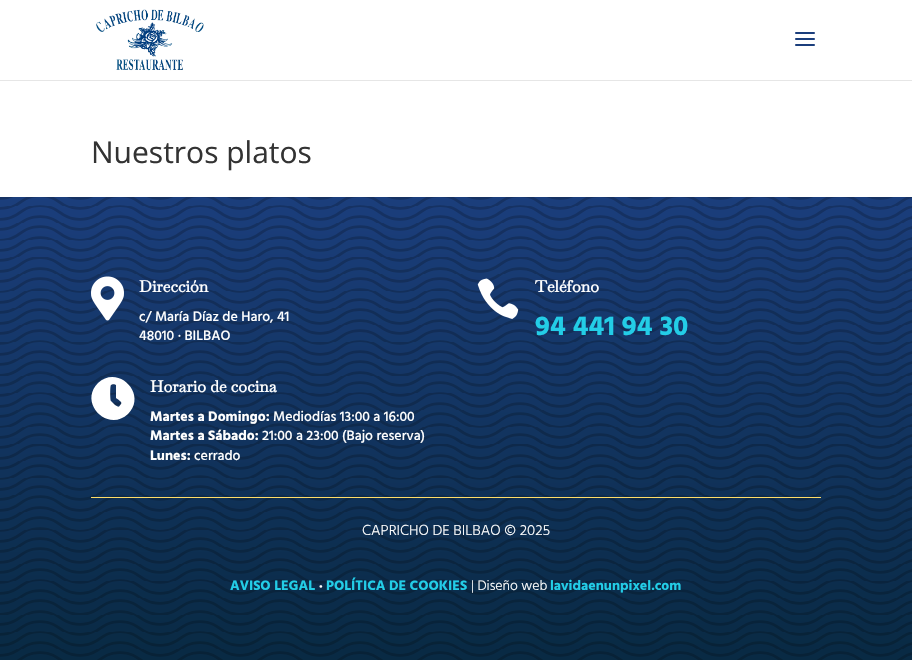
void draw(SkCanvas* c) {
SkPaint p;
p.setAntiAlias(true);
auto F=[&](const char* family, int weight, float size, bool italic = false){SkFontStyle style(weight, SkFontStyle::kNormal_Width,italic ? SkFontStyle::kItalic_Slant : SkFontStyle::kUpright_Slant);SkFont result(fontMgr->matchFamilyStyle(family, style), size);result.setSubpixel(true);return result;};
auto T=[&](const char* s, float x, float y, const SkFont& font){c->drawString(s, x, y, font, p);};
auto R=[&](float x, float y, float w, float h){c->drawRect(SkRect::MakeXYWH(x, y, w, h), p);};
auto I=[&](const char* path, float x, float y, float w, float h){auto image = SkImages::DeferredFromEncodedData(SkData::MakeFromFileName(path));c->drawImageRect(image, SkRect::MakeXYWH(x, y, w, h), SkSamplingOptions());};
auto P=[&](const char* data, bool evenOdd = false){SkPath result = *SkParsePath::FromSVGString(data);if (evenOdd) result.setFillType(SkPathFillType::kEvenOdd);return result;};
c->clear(0xffffffff);
p.setColor(0xffe6e6e6);
R(0,80,912,1);
I("1.png",96,9,108,62);
I("2.png",795,32,20,14);
auto f1 = F("Open Sans",400,30);
p.setColor(0xff333333);
T("Nuestros platos",91,163,f1);
{
const SkColor colors[] = {0xff1b3e7c,0xff082941};
const float stops[] = {0,1};
const SkPoint ends[] = {{456,197}, {456,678}};
p.setShader(SkGradientShader::MakeLinear(ends, colors, stops, 2, SkTileMode::kClamp));
p.setAlpha(255);
}
R(0,197,912,463);
I("3.png",0,197,912,463);
I("4.png",91,276,33,45);
auto f2 = F("Baskervville",700,16);
p.setShader(nullptr);
p.setColor(0xffffffff);
T("Dirección",139,292,f2);
auto f3 = F("Hind",500,14);
T("c/ María Díaz de Haro, 41",139,321,f3);
T("48010 · BILBAO",139,340,f3);
I("5.png",477,278,42,41);
T("Teléfono",535,292,f2);
auto f4 = F("Hind",700,28);
p.setColor(0xff23cde7);
T("94 441 94 30",535,335,f4);
p.setColor(0xffffffff);
c->drawPath(P("M98 383c20-19 50 11 30 31c-20 19-50-11-30-31zm23 21c2-2-4-5-5-6v-13c-1-1-4-1-5 0c-1 0-1 15 0 16l4 4c4 2 3 3 6-1z"),p);
T("Horario de cocina",150,392,f2);
auto f5 = F("Hind",700,14);
T("Martes a Domingo:",150,421,f5);
T("Mediodías 13:00 a 16:00",273,421,f3);
T("Martes a Sábado:",150,440,f5);
T("21:00 a 23:00 (Bajo reserva)",262,440,f3);
T("Lunes:",150,460,f5);
T("cerrado",194,460,f3);
p.setColor(0xffffdd67);
R(91,497,730,1);
auto f6 = F("Hind",300,15);
p.setColor(0xffffffff);
T("CAPRICHO DE BILBAO © 2025",362,535,f6);
p.setColor(0xff23cde7);
T("AVISO LEGAL",230,590,f5);
p.setColor(0xffffffff);
T("·",319,590,f5);
p.setColor(0xff23cde7);
T("POLÍTICA DE COOKIES",326,590,f5);
auto f7 = F("Hind",300,14);
p.setColor(0xffffffff);
T("| Diseño web",471,590,f7);
p.setColor(0xff23cde7);
T("lavidaenunpixel.com",550,590,f5);
}
